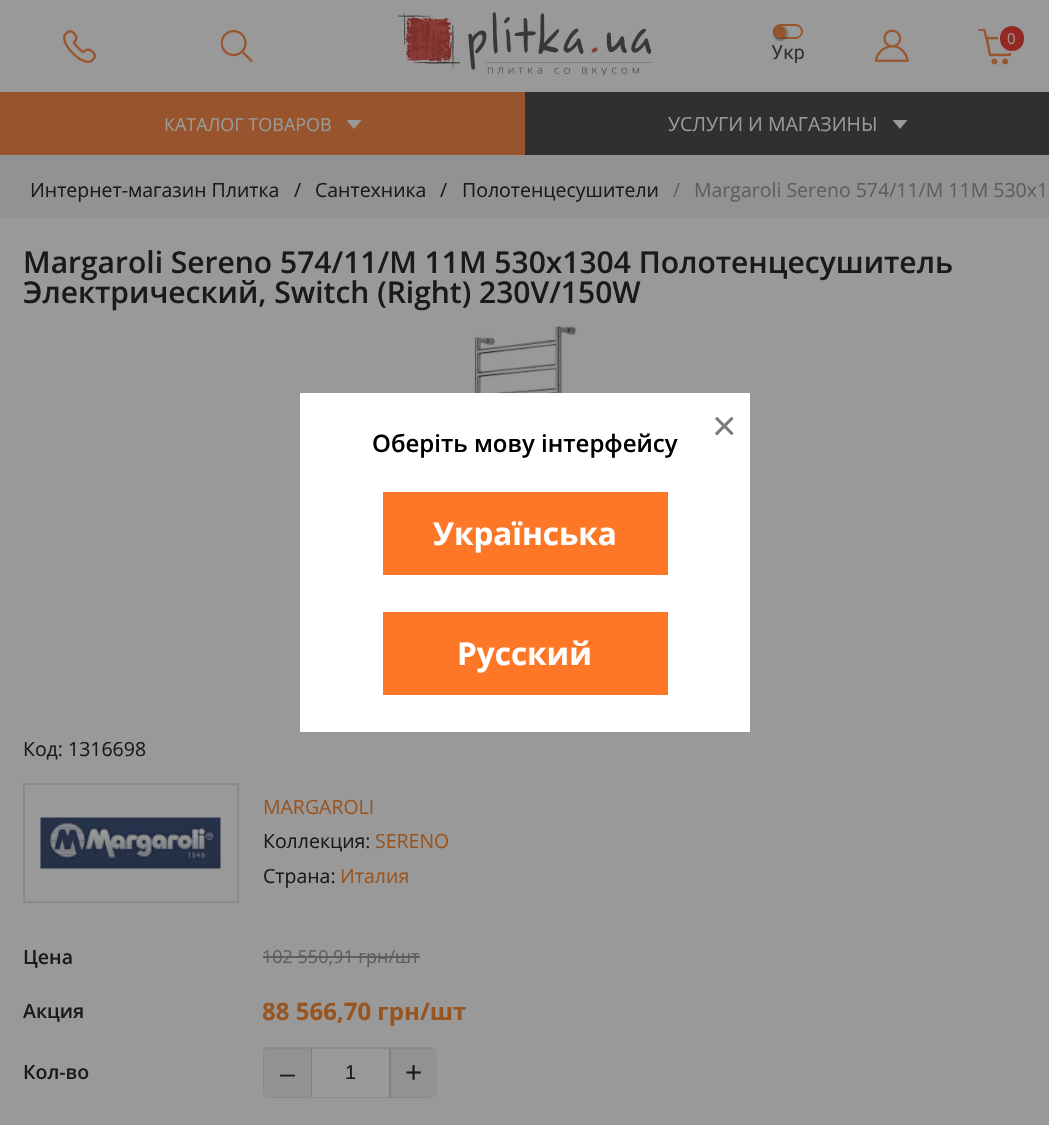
void draw(SkCanvas* c) {
SkPaint p;
p.setAntiAlias(true);
auto F=[&](const char* family, int weight, float size, bool italic = false){SkFontStyle style(weight, SkFontStyle::kNormal_Width,italic ? SkFontStyle::kItalic_Slant : SkFontStyle::kUpright_Slant);SkFont result(fontMgr->matchFamilyStyle(family, style), size);result.setSubpixel(true);return result;};
auto T=[&](const char* s, float x, float y, const SkFont& font){c->drawString(s, x, y, font, p);};
auto R=[&](float x, float y, float w, float h){c->drawRect(SkRect::MakeXYWH(x, y, w, h), p);};
auto I=[&](const char* path, float x, float y, float w, float h){auto image = SkImages::DeferredFromEncodedData(SkData::MakeFromFileName(path));c->drawImageRect(image, SkRect::MakeXYWH(x, y, w, h), SkSamplingOptions());};
auto P=[&](const char* data, bool evenOdd = false){SkPath result = *SkParsePath::FromSVGString(data);if (evenOdd) result.setFillType(SkPathFillType::kEvenOdd);return result;};
c->clear(0xff999999);
I("1.png",63,30,33,33);
I("2.png",221,30,32,33);
I("3.png",398,12,255,64);
I("4.png",875,29,34,33);
I("5.png",978,29,34,36);
p.setColor(0xff932922);
c->drawRoundRect(SkRect::MakeXYWH(999,25,26,27),13,13,p);
p.setStroke(true);
p.setStrokeWidth(2);
p.setColor(0xff999999);
c->drawRoundRect(SkRect::MakeXYWH(999,25,26,27),13,13,p);
auto f1 = F("Open Sans",400,15);
p.setStroke(false);
T("0",1007,44,f1);
p.setStroke(true);
p.setColor(0xff98552d);
c->drawRoundRect(SkRect::MakeXYWH(774,25,28,13),6.5,6.5,p);
p.setStroke(false);
p.setColor(0x2e1a1a1a);
p.setMaskFilter(SkMaskFilter::MakeBlur(kNormal_SkBlurStyle, 1));
c->drawRoundRect(SkRect::MakeXYWH(773,26,15,15),7.5,7.5,p);
p.setMaskFilter(nullptr);
p.setColor(0xff98552d);
c->drawCircle(780,32,6,p);
c->save();
c->clipPath(P("M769 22h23v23h-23zm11 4c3.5 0 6 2.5 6 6c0 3.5-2.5 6-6 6c-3.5 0-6-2.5-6-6c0-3.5 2.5-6 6-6z",true),true);
p.setColor(0x2e1a1a1a);
p.setMaskFilter(SkMaskFilter::MakeBlur(kNormal_SkBlurStyle, 1));
c->drawRoundRect(SkRect::MakeXYWH(773,26,15,15),7.5,7.5,p);
p.setMaskFilter(nullptr);
c->restore();
auto f2 = F("Roboto",400,19.5);
p.setColor(0xff333333);
T("Укр",771,59,f2);
p.setColor(0xff31302f);
R(525,92,524,63);
p.setColor(0xff98552d);
R(0,92,525,63);
auto f3 = F("Open Sans",400,18);
p.setColor(0xff999999);
T("КАТАЛОГ ТОВАРОВ",164,131,f3);
c->drawPath(P("M346.5 120h15l-7.5 9z"),p);
auto f4 = F("Open Sans",400,19.5);
T("УСЛУГИ И МАГАЗИНЫ",668,131,f4);
c->drawPath(P("M892.5 120h15l-7.5 9z"),p);
p.setColor(0xff929292);
R(0,155,1049,63);
p.setColor(0xff1a1a1a);
T("Интернет-магазин Плитка",30,197,f4);
T("/",294,197,f4);
T("Сантехника",315,197,f4);
T("/",440,197,f4);
T("Полотенцесушители",462,197,f4);
p.setColor(0xff5e5e5e);
T("/",673,197,f4);
T("Margaroli Sereno 574/11/M 11М 530х1",694,197,f4);
auto f5 = F("Open Sans",600,30);
p.setColor(0xff1a1a1a);
T("Margaroli Sereno 574/11/M 11М 530х1304 Полотенцесушитель",23,273,f5);
T("Электрический, Switch (Right) 230V/150W",23,303,f5);
I("6.png",470,326,107,67);
T("Код: 1316698",23,756,f4);
p.setStroke(true);
p.setColor(0xff8a8a8a);
c->drawRect(SkRect::MakeXYWH(24,784,214,118),p);
I("7.png",40,817,181,52);
p.setStroke(false);
p.setColor(0xff995520);
T("MARGAROLI",263,814,f4);
p.setColor(0xff1a1a1a);
T("Коллекция:",263,848,f4);
p.setColor(0xff995520);
T("SERENO",375,848,f4);
p.setColor(0xff1a1a1a);
T("Страна:",263,883,f4);
p.setColor(0xff995520);
T("Италия",340,883,f4);
auto f6 = F("Open Sans",600,19.5);
p.setColor(0xff1a1a1a);
T("Цена",23,964,f6);
p.setColor(0xff5e5e5e);
T("102 550,91 грн/шт",262,963,f3);
R(263,956,157,2);
p.setColor(0xff1a1a1a);
T("Акция",23,1018,f6);
auto f7 = F("Open Sans",700,24);
p.setColor(0xff995520);
T("88 566,70 грн/шт",262,1020,f7);
p.setColor(0xff1a1a1a);
T("Кол-во",23,1079,f6);
p.setStroke(true);
p.setColor(0xff8a8a8a);
c->drawRoundRect(SkRect::MakeXYWH(264,1048,170,49),4,4,p);
p.setStroke(false);
p.setColor(0xff929292);
R(264,1049,47,48);
p.setColor(0xff808080);
R(311,1049,1,48);
auto f8 = F("FreeSans",400,30);
p.setColor(0xff1a1a1a);
T("⎯",280,1083,f8);
p.setColor(0xff999999);
R(312,1096,77,1);
auto f9 = F("Liberation Sans",400,20);
p.setColor(0xff1a1a1a);
T("1",345,1079,f9);
p.setColor(0xff929292);
R(391,1049,46,48);
p.setColor(0xff808080);
R(389,1049,2,48);
auto f10 = F("Open Sans",400,30);
p.setColor(0xff1a1a1a);
T("+",405,1083,f10);
p.setColor(0xffffffff);
R(300,393,450,339);
auto f11 = F("Liberation Sans",400,42);
p.setColor(0xff7a7a7a);
T("×",712,440,f11);
auto f12 = F("Open Sans",600,24);
p.setColor(0xff000000);
T("Оберіть мову інтерфейсу",372,452,f12);
p.setColor(0xfffd7727);
R(383,492,285,83);
auto f13 = F("Open Sans",700,31.5);
p.setColor(0xffffffff);
T("Українська",433,545,f13);
p.setColor(0xfffd7727);
R(383,612,285,83);
p.setColor(0xffffffff);
T("Русский",457,665,f13);
}
